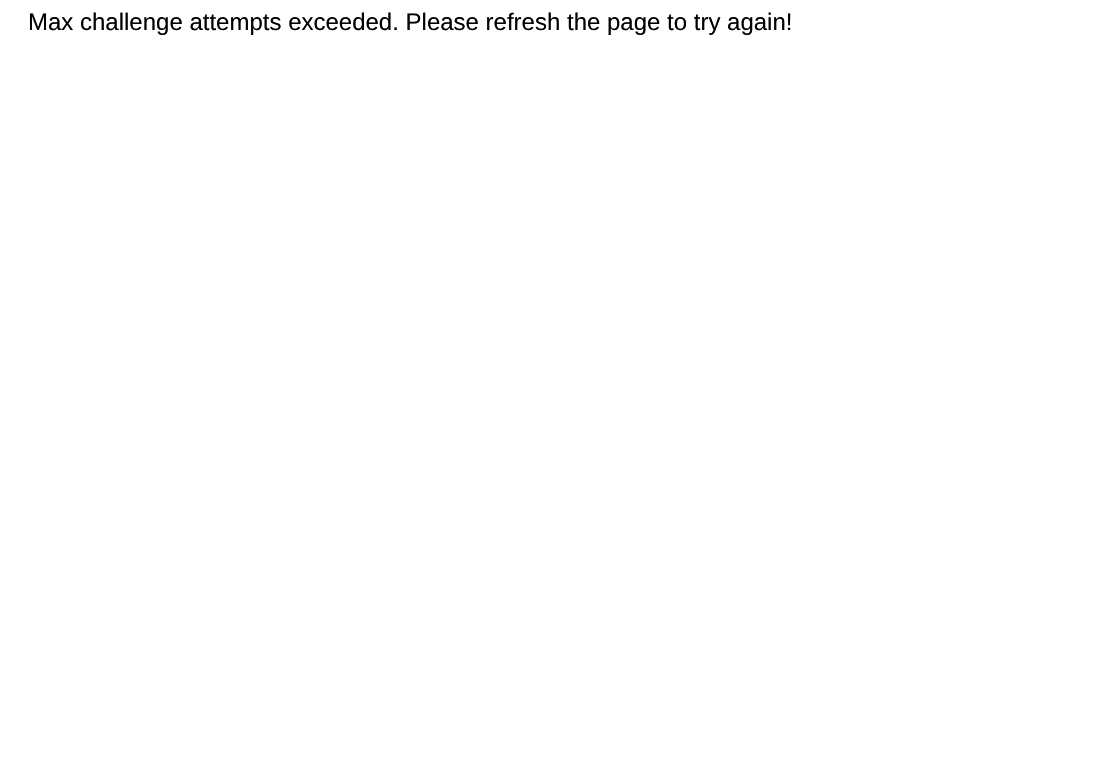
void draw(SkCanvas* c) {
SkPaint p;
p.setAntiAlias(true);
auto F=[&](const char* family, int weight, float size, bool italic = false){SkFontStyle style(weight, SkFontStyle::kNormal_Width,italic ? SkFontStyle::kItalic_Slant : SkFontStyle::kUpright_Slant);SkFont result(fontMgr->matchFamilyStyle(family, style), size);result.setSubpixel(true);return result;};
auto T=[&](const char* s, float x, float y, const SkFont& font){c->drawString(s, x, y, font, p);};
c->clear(0xffffffff);
auto f1 = F("Liberation Sans",400,24);
p.setColor(0xff000000);
T("Max challenge attempts exceeded. Please refresh the page to try again!",28,30,f1);
}
